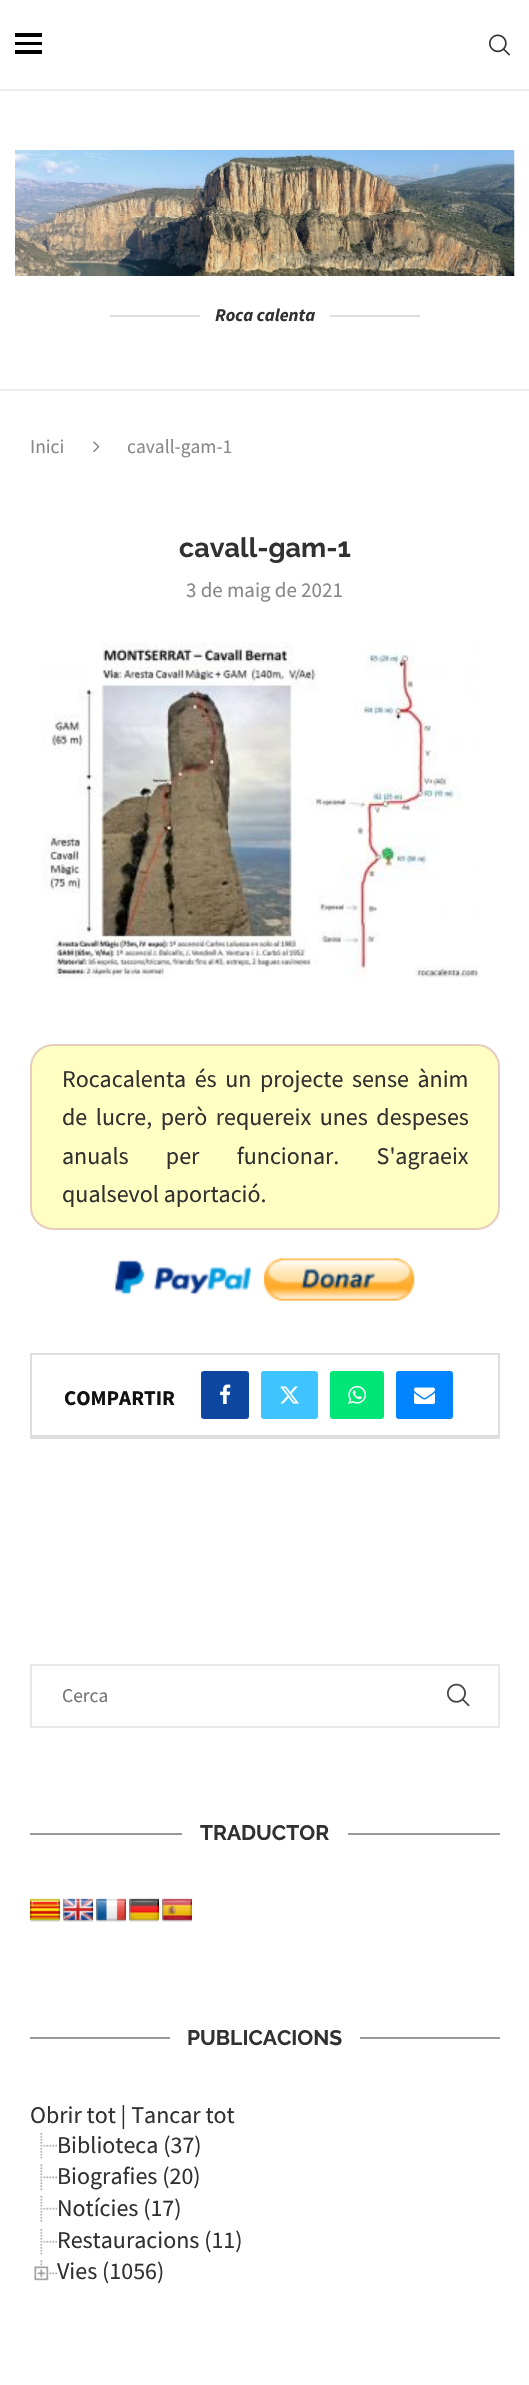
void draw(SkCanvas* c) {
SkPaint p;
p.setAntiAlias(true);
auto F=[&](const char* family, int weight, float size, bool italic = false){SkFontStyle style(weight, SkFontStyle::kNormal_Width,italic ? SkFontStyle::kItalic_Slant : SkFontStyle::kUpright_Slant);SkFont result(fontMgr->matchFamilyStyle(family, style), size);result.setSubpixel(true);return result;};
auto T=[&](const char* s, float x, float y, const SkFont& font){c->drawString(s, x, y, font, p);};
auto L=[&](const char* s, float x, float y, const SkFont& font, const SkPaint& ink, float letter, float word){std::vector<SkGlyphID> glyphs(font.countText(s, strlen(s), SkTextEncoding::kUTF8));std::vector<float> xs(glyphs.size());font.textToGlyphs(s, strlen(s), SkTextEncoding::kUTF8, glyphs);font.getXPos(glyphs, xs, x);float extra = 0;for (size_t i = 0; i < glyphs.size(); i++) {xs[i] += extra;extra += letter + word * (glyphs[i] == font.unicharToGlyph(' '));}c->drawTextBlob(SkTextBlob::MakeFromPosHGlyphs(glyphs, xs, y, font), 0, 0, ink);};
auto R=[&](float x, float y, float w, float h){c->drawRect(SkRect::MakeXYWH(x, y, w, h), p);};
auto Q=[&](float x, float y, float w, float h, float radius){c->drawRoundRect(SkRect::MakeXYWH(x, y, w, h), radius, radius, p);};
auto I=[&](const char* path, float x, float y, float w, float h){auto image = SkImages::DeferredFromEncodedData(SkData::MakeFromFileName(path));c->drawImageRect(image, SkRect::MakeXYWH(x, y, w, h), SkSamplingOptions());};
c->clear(0xffffffff);
p.setColor(0xffececec);
R(0,89,529,2);
p.setColor(0xff000000);
R(15,33,27,4);
R(15,42,27,3);
R(15,50,27,4);
I("1.png",489,34,21,22);
p.setColor(0xffececec);
R(0,389,529,2);
I("2.png",15,150,500,126);
p.setColor(0xffdedede);
R(110,315,90,2);
auto f1 = F("Source Sans Pro",700,18,true);
p.setColor(0xff313131);
T("Roca calenta",215,321,f1);
p.setColor(0xffdedede);
R(330,315,90,2);
auto f2 = F("Source Sans Pro",400,19.5);
p.setColor(0xff888888);
T("Inici",30,453,f2);
I("3.png",93,441,7,12);
T("cavall-gam-1",127,453,f2);
auto f3 = F("Raleway",700,27);
p.setColor(0xff313131);
T("cavall-gam-1",179,557,f3);
auto f4 = F("Source Sans Pro",400,21);
p.setColor(0xff888888);
T("3 de maig de 2021",186,597,f4);
I("4.png",42,642,438,336);
p.setColor(0xffffffc3);
c->drawRoundRect(SkRect::MakeXYWH(31,1045,468,184),22,22,p);
p.setStroke(true);
p.setStrokeWidth(2);
p.setColor(0xffe7cdbd);
c->drawRoundRect(SkRect::MakeXYWH(31,1045,468,184),22,22,p);
auto f5 = F("Source Sans Pro",400,24);
p.setStroke(false);
p.setColor(0xff313131);
L("Rocacalenta és un projecte sense ànim",62,1087,f5,p,0,3.75);
L("de lucre, però requereix unes despeses",62,1125,f5,p,0,3.75);
L("anuals per funcionar. S'agraeix",62,1164,f5,p,0,32.5);
T("qualsevol aportació.",62,1202,f5);
I("5.png",115,1258,300,43);
p.setStroke(true);
p.setColor(0xffdedede);
c->drawRect(SkRect::MakeXYWH(31,1354,468,82),p);
auto f6 = F("Source Sans Pro",700,21);
p.setStroke(false);
p.setColor(0xff111111);
T("COMPARTIR",64,1405,f6);
p.setColor(0xff0d47a1);
Q(201,1371,48,48,3);
I("6.png",220,1384,11,20);
p.setColor(0xff40c4ff);
Q(261,1371,57,48,3);
I("7.png",280,1386,19,18);
p.setColor(0xff00e676);
Q(330,1371,54,48,3);
I("8.png",348,1385,18,19);
p.setColor(0xff0084ff);
Q(396,1371,57,48,3);
I("9.png",414,1387,21,17);
p.setColor(0xffdedede);
R(30,1437,470,2);
p.setStroke(true);
p.setColor(0xffe9e9e9);
c->drawRect(SkRect::MakeXYWH(31,1665,468,62),p);
p.setStroke(false);
p.setColor(0xff757575);
T("Cerca",62,1702,f2);
I("10.png",447,1683,23,24);
p.setColor(0xff989898);
R(30,1833,152,2);
auto f7 = F("Raleway",700,21);
p.setColor(0xff313131);
T("TRADUCTOR",200,1840,f7);
p.setColor(0xff989898);
R(348,1833,152,2);
I("11.png",30,1898,30,24);
I("12.png",63,1898,30,24);
I("13.png",96,1898,30,24);
I("14.png",129,1898,30,24);
I("15.png",162,1898,30,24);
R(30,2037,140,2);
p.setColor(0xff313131);
T("PUBLICACIONS",187,2045,f7);
p.setColor(0xff989898);
R(360,2037,140,2);
p.setColor(0xff313131);
T("Obrir tot | Tancar tot",30,2123,f5);
I("16.png",40,2133,17,26);
T("Biblioteca (37)",57,2153,f5);
I("17.png",40,2164,17,27);
T("Biografies (20)",57,2184,f5);
I("16.png",40,2196,17,26);
T("Notícies (17)",57,2216,f5);
I("16.png",40,2229,17,26);
T("Restauracions (11)",57,2248,f5);
I("18.png",34,2260,23,21);
T("Vies (1056)",57,2279,f5);
}
